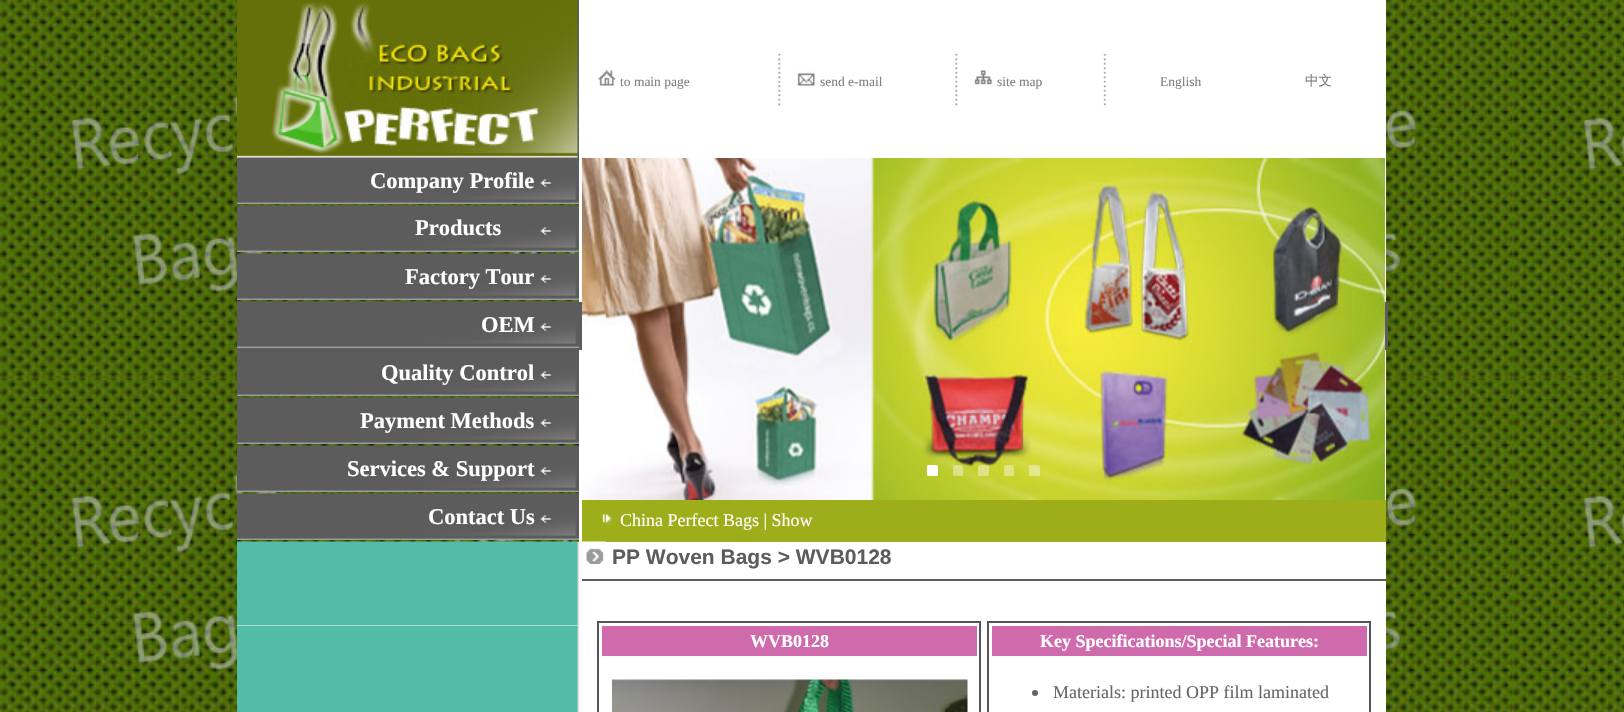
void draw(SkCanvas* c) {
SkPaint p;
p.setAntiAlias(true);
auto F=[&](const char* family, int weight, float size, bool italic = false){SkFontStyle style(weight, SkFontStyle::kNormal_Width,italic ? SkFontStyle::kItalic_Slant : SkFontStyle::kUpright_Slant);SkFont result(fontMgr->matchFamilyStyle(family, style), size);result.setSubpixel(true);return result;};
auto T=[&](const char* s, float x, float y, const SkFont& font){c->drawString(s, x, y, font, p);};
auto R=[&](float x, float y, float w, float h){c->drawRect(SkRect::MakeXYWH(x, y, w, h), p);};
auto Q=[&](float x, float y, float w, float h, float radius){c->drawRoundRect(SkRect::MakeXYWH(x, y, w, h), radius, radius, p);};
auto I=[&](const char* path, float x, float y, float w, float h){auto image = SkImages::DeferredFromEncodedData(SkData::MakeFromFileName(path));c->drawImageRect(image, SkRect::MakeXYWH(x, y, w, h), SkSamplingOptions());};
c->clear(0xffffffff);
I("1.png",0,0,1624,712);
p.setColor(0xff5c5c5c);
R(237,0,342,158);
I("2.png",237,0,341,158);
p.setColor(0xffffffff);
R(579,0,807,158);
I("3.png",598,70,18,16);
auto f1 = F("Liberation Serif",400,13.5);
p.setColor(0xff7f7f7f);
T("to main page",620,86,f1);
I("4.png",778,53,3,53);
I("5.png",797,69,18,17);
T("send e-mail",820,86,f1);
I("4.png",955,53,3,53);
I("6.png",974,70,18,15);
T("site map",997,86,f1);
I("7.png",1103,53,3,53);
T("English",1160,86,f1);
auto f2 = F("WenQuanYi Zen Hei",500,13.5);
T("中文",1305,85,f2);
I("8.png",237,158,342,46);
auto f3 = F("Liberation Serif",700,22.5);
p.setColor(0xffffffff);
T("Company Profile",370,188,f3);
R(579,158,3,554);
R(1385,158,1,342);
p.setColor(0xff5c5c5c);
R(237,302,1151,48);
I("9.png",582,158,803,342);
p.setColor(0xffffffff);
Q(927,465,11,11,1.5);
p.setColor(0x66ffffff);
Q(953,465,10,11,1.5);
Q(978,465,11,11,1.5);
Q(1004,465,10,11,1.5);
Q(1029,465,11,11,1.5);
I("10.png",237,205,342,47);
p.setColor(0xffffffff);
T("Products",415,235,f3);
I("11.png",237,253,342,47);
T("Factory Tour",405,284,f3);
I("12.png",237,301,342,47);
T("OEM",481,332,f3);
I("8.png",237,350,342,46);
T("Quality Control",381,380,f3);
I("13.png",237,397,342,47);
T("Payment Methods",360,428,f3);
I("14.png",237,445,342,47);
T("Services & Support",347,476,f3);
I("15.png",237,493,342,47);
T("Contact Us",428,524,f3);
p.setColor(0xff9ead1a);
R(582,500,804,42);
I("16.png",602,514,12,11);
auto f4 = F("Liberation Serif",400,18);
p.setColor(0xffffffff);
T("China Perfect Bags | Show",620,526,f4);
I("17.png",1386,499,2,43);
p.setColor(0xffdbdbdb);
R(577,542,2,170);
I("18.png",237,541,341,171);
p.setColor(0xffffffff);
R(582,542,804,170);
I("19.png",582,541,24,23);
auto f5 = F("Liberation Sans",700,21);
p.setColor(0xff5c5c5c);
T("PP Woven Bags > WVB0128",612,564,f5);
R(582,579,804,2);
p.setStroke(true);
p.setStrokeWidth(2);
p.setColor(0xff555555);
c->drawRect(SkRect::MakeXYWH(598,622,382,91),p);
p.setStroke(false);
p.setColor(0xffcf6bac);
R(602,626,375,30);
auto f6 = F("Liberation Serif",700,18);
p.setColor(0xffffffff);
T("WVB0128",750,647,f6);
I("20.png",612,679,356,33);
p.setStroke(true);
p.setColor(0xff555555);
c->drawRect(SkRect::MakeXYWH(988,622,382,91),p);
p.setStroke(false);
p.setColor(0xffcf6bac);
R(992,626,375,30);
p.setColor(0xffffffff);
T("Key Specifications/Special Features:",1040,647,f6);
p.setColor(0xff666666);
c->drawCircle(1035,693,3,p);
T("Materials: printed OPP film laminated",1053,698,f4);
}
